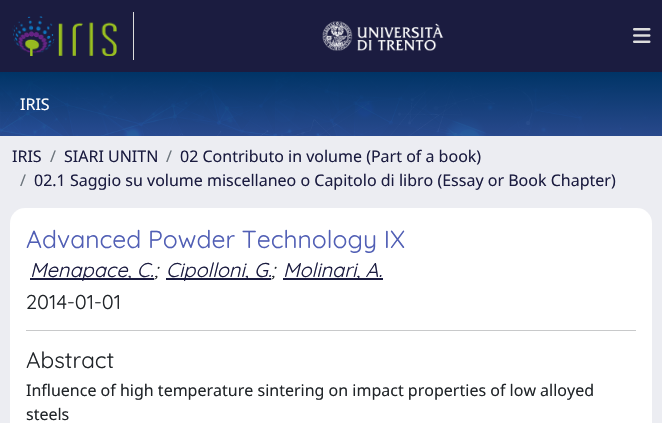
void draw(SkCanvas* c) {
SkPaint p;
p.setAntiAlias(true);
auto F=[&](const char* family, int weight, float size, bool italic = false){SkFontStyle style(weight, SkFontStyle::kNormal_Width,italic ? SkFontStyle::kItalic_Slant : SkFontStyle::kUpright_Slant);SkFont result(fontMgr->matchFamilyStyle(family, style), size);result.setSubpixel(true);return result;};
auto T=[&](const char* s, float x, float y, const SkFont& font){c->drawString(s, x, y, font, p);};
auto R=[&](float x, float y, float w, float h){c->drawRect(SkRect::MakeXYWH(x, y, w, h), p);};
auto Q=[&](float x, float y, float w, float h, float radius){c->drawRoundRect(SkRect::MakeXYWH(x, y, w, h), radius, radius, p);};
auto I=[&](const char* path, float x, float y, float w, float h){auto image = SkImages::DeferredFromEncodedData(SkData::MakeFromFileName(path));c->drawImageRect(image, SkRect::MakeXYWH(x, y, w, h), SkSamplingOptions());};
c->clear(0xffecedf2);
p.setColor(0xff1b1c40);
R(0,0,662,72);
p.setColor(0xffdddddd);
R(133,12,1,48);
I("1.png",12,16,105,40);
I("2.png",322,21,122,30);
I("3.png",633,28,18,15);
I("4.png",0,72,662,64);
auto f1 = F("Noto Sans",400,16);
p.setColor(0xffffffff);
T("IRIS",20,110,f1);
p.setColor(0xff1b1c40);
T("IRIS",12,162,f1);
p.setColor(0xff6c757d);
T("/",50,162,f1);
p.setColor(0xff1b1c40);
T("SIARI UNITN",64,162,f1);
p.setColor(0xff6c757d);
T("/",166,162,f1);
p.setColor(0xff1b1c40);
T("02 Contributo in volume (Part of a book)",180,162,f1);
p.setColor(0xff6c757d);
T("/",20,186,f1);
p.setColor(0xff1b1c40);
T("02.1 Saggio su volume miscellaneo o Capitolo di libro (Essay or Book Chapter)",34,186,f1);
p.setColor(0xffffffff);
Q(10,208,642,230,15);
auto f2 = F("Quicksand",400,24.75);
p.setColor(0xff515fb5);
T("Advanced Powder Technology IX",26,248,f2);
p.setColor(0xff1b1c40);
R(30,278,124,2);
auto f3 = F("Quicksand",400,20,true);
T("Menapace, C.",30,277,f3);
p.setColor(0xff212529);
T(";",154,277,f3);
p.setColor(0xff1b1c40);
R(166,278,105,2);
T("Cipolloni, G.",166,277,f3);
p.setColor(0xff212529);
T(";",271,277,f3);
p.setColor(0xff1b1c40);
R(283,278,100,2);
T("Molinari, A.",283,277,f3);
auto f4 = F("Quicksand",400,20);
p.setColor(0xff212529);
T("2014-01-01",26,309,f4);
p.setColor(0xffc8c9ca);
R(26,330,610,1);
auto f5 = F("Quicksand",400,22.5);
p.setColor(0xff212529);
T("Abstract",26,368,f5);
T("Influence of high temperature sintering on impact properties of low alloyed",26,396,f1);
T("steels",26,420,f1);
}
